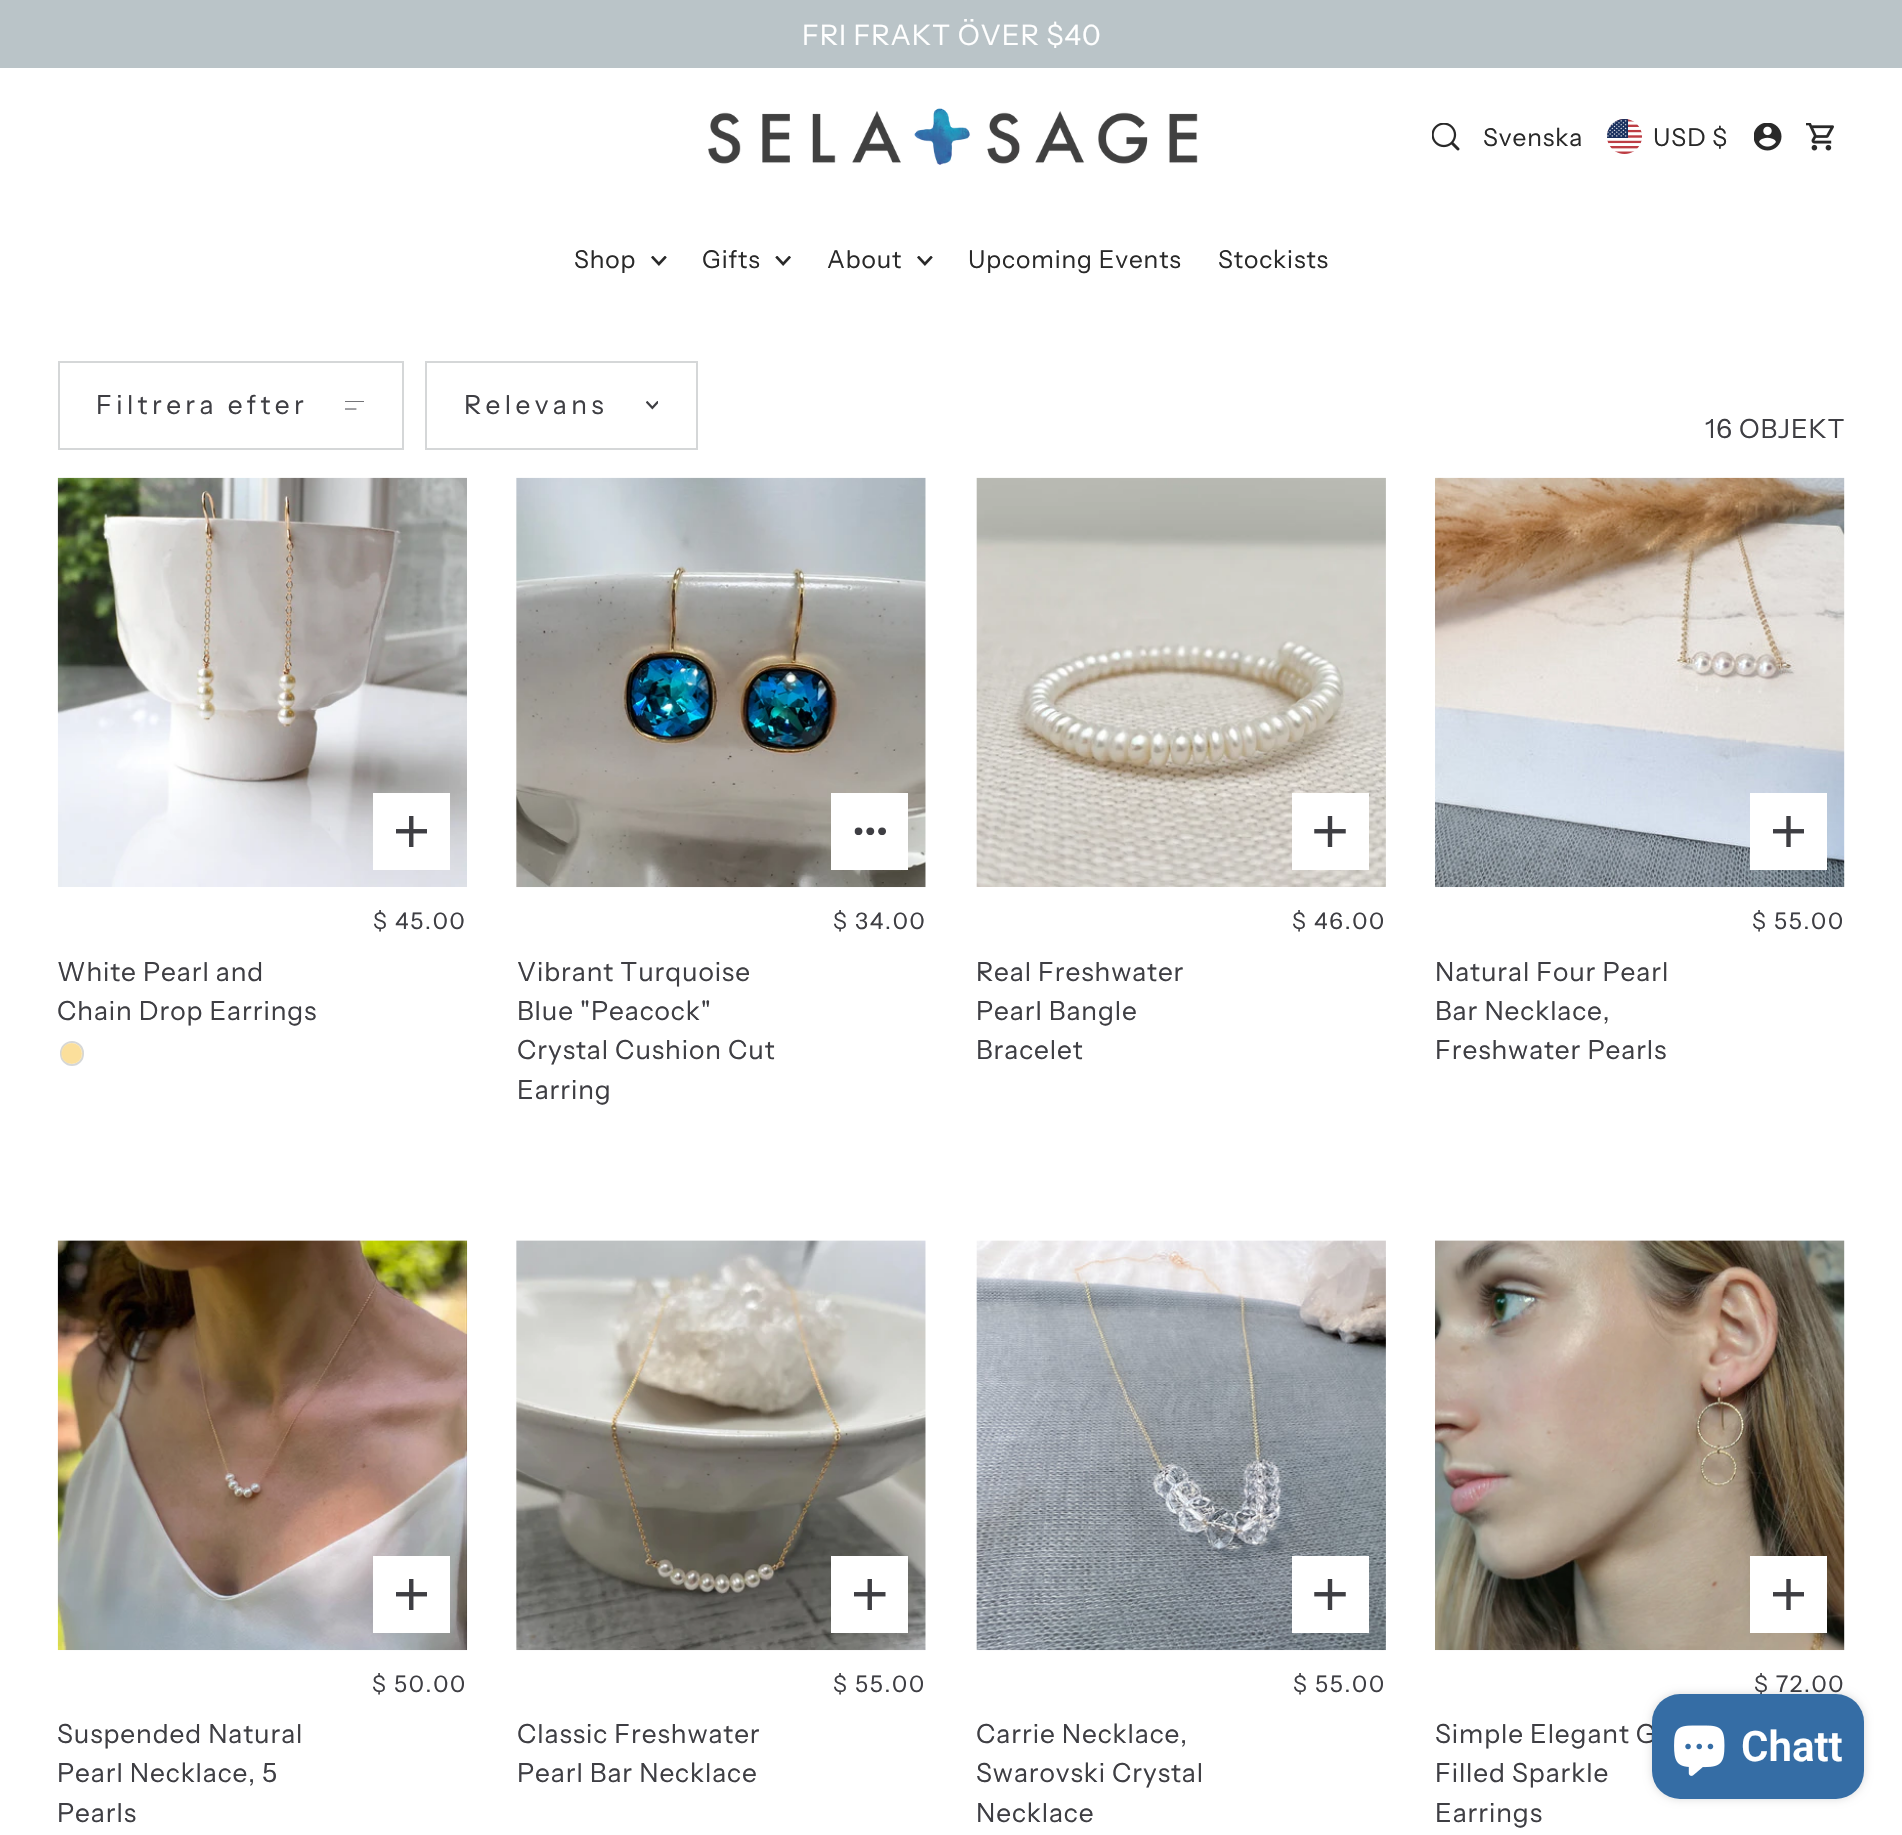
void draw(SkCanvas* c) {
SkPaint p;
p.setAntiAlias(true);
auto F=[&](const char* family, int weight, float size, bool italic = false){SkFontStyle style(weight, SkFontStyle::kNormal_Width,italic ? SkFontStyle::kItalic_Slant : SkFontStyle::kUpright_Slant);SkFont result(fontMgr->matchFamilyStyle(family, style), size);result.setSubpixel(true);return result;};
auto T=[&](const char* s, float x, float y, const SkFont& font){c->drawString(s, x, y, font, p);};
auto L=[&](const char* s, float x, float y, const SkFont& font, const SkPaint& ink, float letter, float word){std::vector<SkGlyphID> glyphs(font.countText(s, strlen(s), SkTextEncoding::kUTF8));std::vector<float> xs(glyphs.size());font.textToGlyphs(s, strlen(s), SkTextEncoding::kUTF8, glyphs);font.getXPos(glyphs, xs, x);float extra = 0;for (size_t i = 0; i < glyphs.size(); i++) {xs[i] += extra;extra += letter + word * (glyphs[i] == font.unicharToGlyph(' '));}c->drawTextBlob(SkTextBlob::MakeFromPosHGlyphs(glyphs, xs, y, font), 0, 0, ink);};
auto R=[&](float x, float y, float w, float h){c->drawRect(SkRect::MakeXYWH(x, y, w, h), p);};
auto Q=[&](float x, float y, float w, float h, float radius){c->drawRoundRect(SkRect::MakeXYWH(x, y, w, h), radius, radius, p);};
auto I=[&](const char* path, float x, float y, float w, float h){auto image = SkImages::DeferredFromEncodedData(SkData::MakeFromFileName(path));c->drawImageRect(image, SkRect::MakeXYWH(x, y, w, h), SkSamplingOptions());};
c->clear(0xffffffff);
p.setColor(0xffbac4c8);
R(0,0,1902,68);
auto f1 = F("Instrument Sans",400,28);
p.setColor(0xffffffff);
L("FRI FRAKT ÖVER $40",802,45,f1,p,.9,0);
I("1.png",708,108,490,57);
I("2.png",1432,123,28,28);
auto f2 = F("Instrument Sans",400,24.5);
p.setColor(0xff292929);
L("Svenska",1483,146,f2,p,.9,0);
I("3.png",1607,119,35,35);
L("USD $",1653,146,f2,p,.9,0);
I("4.png",1754,123,28,28);
I("5.png",1806,123,28,28);
L("Shop",574,268,f2,p,.9,0);
I("6.png",651,256,16,10);
L("Gifts",702,268,f2,p,.9,0);
I("7.png",775,256,16,10);
L("About",827,268,f2,p,.9,0);
I("6.png",917,256,16,10);
L("Upcoming Events",968,268,f2,p,.9,0);
L("Stockists",1218,268,f2,p,.9,0);
p.setStroke(true);
p.setStrokeWidth(2);
p.setColor(0xffd5d7d8);
c->drawRect(SkRect::MakeXYWH(59,362,344,87),p);
auto f3 = F("Instrument Sans",400,26.25);
p.setStroke(false);
p.setColor(0xff3e3e43);
L("Filtrera efter",96,414,f3,p,4.4,0);
I("8.png",345,401,19,9);
p.setStroke(true);
p.setColor(0xffd5d7d8);
c->drawRect(SkRect::MakeXYWH(426,362,271,87),p);
p.setStroke(false);
p.setColor(0xff3e3e43);
L("Relevans",464,414,f3,p,4.4,0);
I("9.png",646,401,12,9);
L("16 OBJEKT",1705,438,f3,p,.9,0);
I("10.png",57,477,410,410);
p.setColor(0xffffffff);
R(373,793,77,77);
I("11.png",396,816,31,31);
auto f4 = F("Instrument Sans",400,22.75);
p.setColor(0xff3e3e43);
L("$ 45.00",373,929,f4,p,1.75,0);
L("White Pearl and",57,981,f3,p,.9,0);
L("Chain Drop Earrings",57,1020,f3,p,.9,0);
p.setStroke(true);
p.setColor(0xffd5d7d8);
c->drawRoundRect(SkRect::MakeXYWH(61,1042,22,23),11,11,p);
I("12.png",60,1043,23,21);
I("13.png",516,477,410,411);
p.setStroke(false);
p.setColor(0xffffffff);
R(831,793,77,77);
I("14.png",854,827,32,9);
p.setColor(0xff3e3e43);
L("$ 34.00",833,929,f4,p,1.75,0);
L("Vibrant Turquoise",517,981,f3,p,.9,0);
L("Blue \"Peacock\"",517,1020,f3,p,.9,0);
L("Crystal Cushion Cut",517,1059,f3,p,.9,0);
L("Earring",517,1099,f3,p,.9,0);
I("15.png",976,477,410,410);
p.setColor(0xffffffff);
R(1292,793,77,77);
I("16.png",1314,816,32,31);
p.setColor(0xff3e3e43);
L("$ 46.00",1292,929,f4,p,1.75,0);
L("Real Freshwater",976,981,f3,p,.9,0);
L("Pearl Bangle",976,1020,f3,p,.9,0);
L("Bracelet",976,1059,f3,p,.9,0);
I("17.png",1435,477,410,411);
p.setColor(0xffffffff);
R(1750,793,77,77);
I("18.png",1773,816,31,31);
p.setColor(0xff3e3e43);
L("$ 55.00",1752,929,f4,p,1.75,0);
L("Natural Four Pearl",1435,981,f3,p,.9,0);
L("Bar Necklace,",1435,1020,f3,p,.9,0);
L("Freshwater Pearls",1435,1059,f3,p,.9,0);
I("19.png",57,1240,411,411);
p.setColor(0xffffffff);
R(373,1556,77,77);
I("11.png",396,1579,31,31);
p.setColor(0xff3e3e43);
L("$ 50.00",372,1692,f4,p,1.75,0);
L("Suspended Natural",57,1743,f3,p,.9,0);
L("Pearl Necklace, 5",57,1782,f3,p,.9,0);
L("Pearls",57,1822,f3,p,.9,0);
I("20.png",516,1240,410,411);
p.setColor(0xffffffff);
R(831,1556,77,77);
I("21.png",854,1579,32,31);
p.setColor(0xff3e3e43);
L("$ 55.00",833,1692,f4,p,1.75,0);
L("Classic Freshwater",517,1743,f3,p,.9,0);
L("Pearl Bar Necklace",517,1782,f3,p,.9,0);
I("22.png",976,1240,410,411);
p.setColor(0xffffffff);
R(1292,1556,77,77);
I("16.png",1314,1579,32,31);
p.setColor(0xff3e3e43);
L("$ 55.00",1293,1692,f4,p,1.75,0);
L("Carrie Necklace,",976,1743,f3,p,.9,0);
L("Swarovski Crystal",976,1782,f3,p,.9,0);
L("Necklace",976,1822,f3,p,.9,0);
I("23.png",1435,1240,410,411);
p.setColor(0xffffffff);
R(1750,1556,77,77);
I("18.png",1773,1579,31,31);
p.setColor(0xff3e3e43);
L("$ 72.00",1754,1692,f4,p,1.75,0);
L("Simple Elegant G",1435,1743,f3,p,.9,0);
L("Filled Sparkle",1435,1782,f3,p,.9,0);
L("Earrings",1435,1822,f3,p,.9,0);
p.setColor(0x26000000);
p.setMaskFilter(SkMaskFilter::MakeBlur(kNormal_SkBlurStyle, 4.5));
c->drawRoundRect(SkRect::MakeXYWH(1652,1694,212,105),28,28,p);
p.setMaskFilter(nullptr);
p.setColor(0xff356da5);
Q(1652,1694,212,105,28);
I("24.png",1674,1725,51,51);
auto f5 = F("Roboto",600,42);
p.setColor(0xffffffff);
T("Chatt",1741,1761,f5);
}
